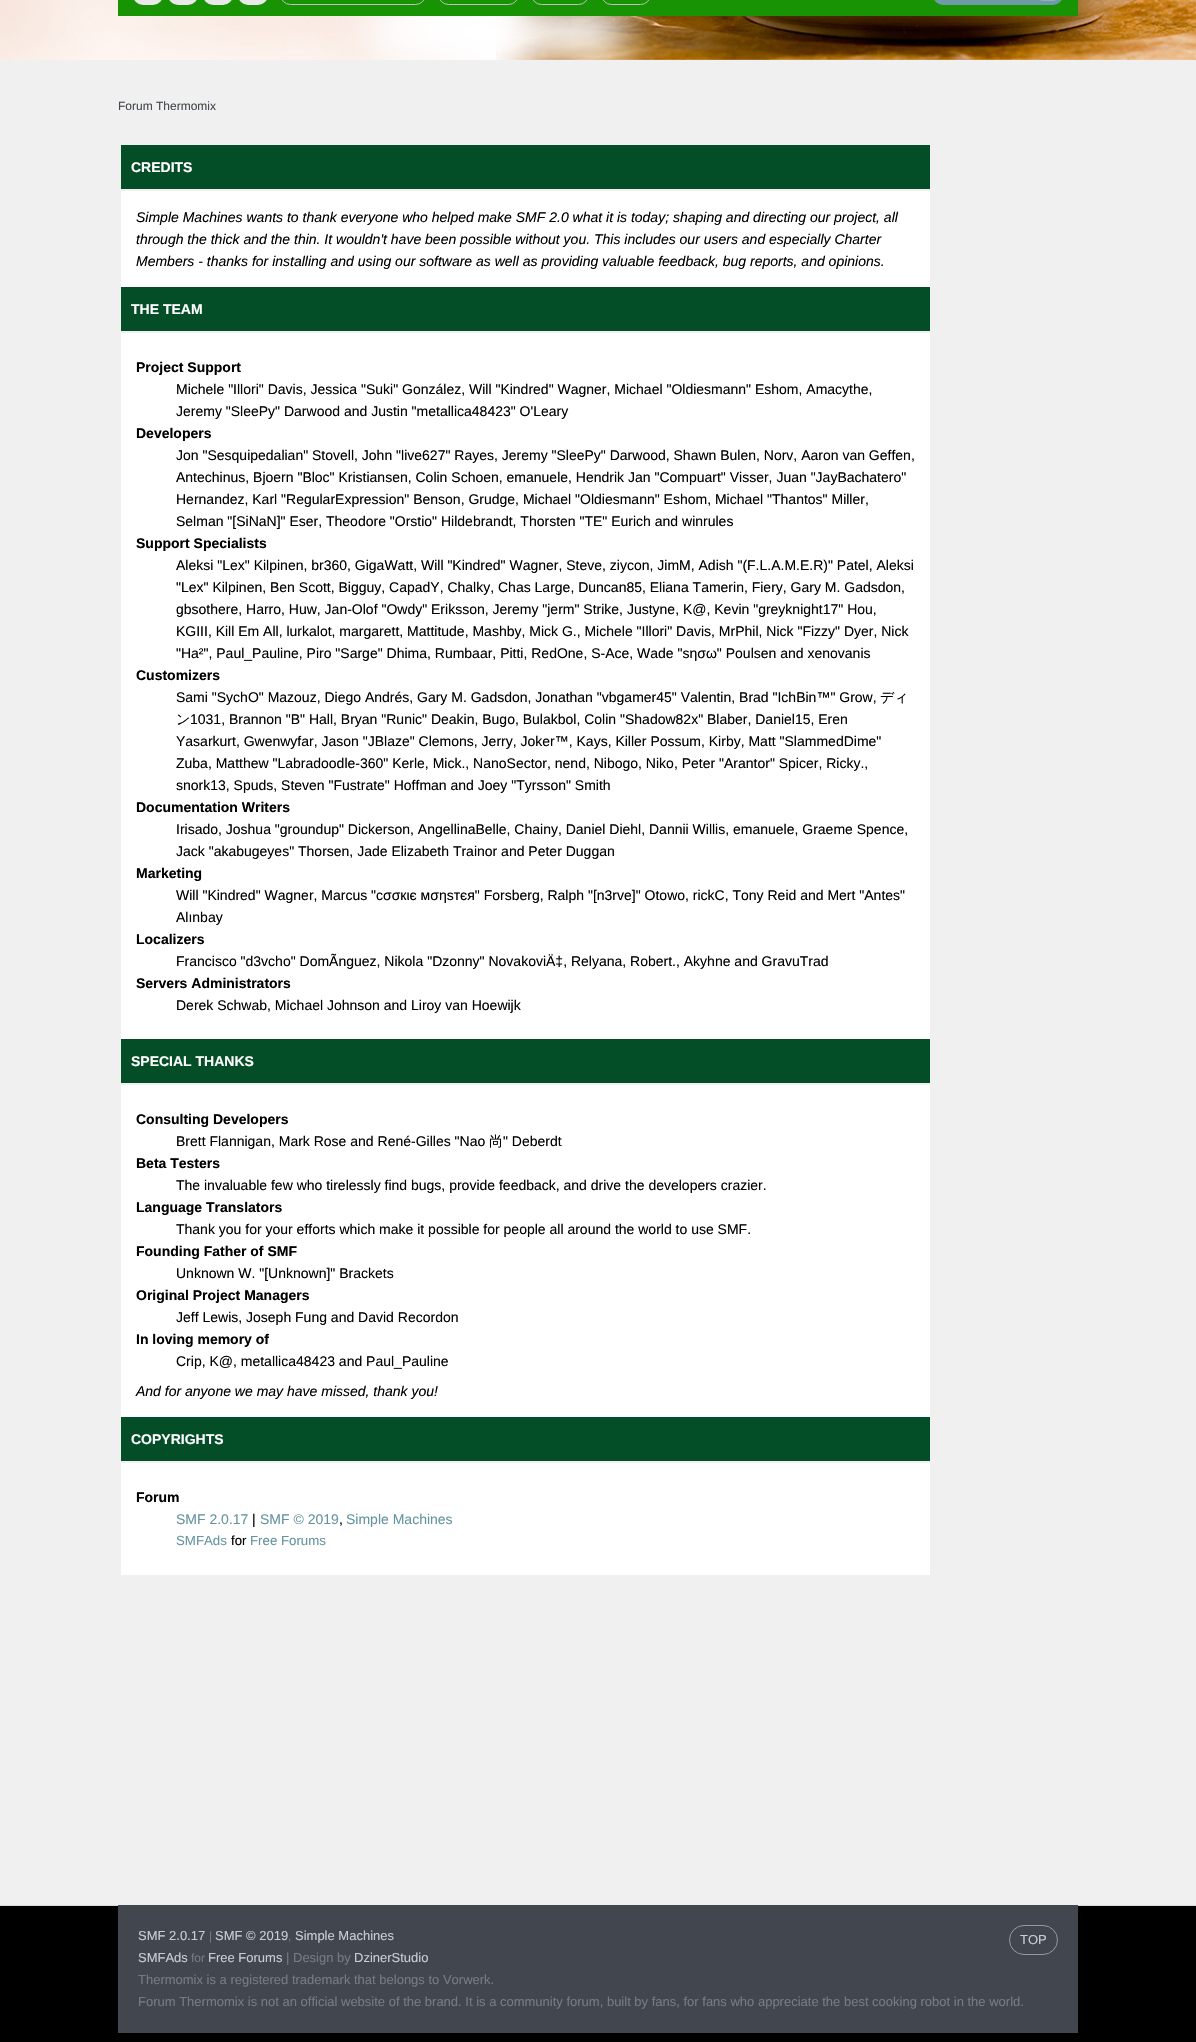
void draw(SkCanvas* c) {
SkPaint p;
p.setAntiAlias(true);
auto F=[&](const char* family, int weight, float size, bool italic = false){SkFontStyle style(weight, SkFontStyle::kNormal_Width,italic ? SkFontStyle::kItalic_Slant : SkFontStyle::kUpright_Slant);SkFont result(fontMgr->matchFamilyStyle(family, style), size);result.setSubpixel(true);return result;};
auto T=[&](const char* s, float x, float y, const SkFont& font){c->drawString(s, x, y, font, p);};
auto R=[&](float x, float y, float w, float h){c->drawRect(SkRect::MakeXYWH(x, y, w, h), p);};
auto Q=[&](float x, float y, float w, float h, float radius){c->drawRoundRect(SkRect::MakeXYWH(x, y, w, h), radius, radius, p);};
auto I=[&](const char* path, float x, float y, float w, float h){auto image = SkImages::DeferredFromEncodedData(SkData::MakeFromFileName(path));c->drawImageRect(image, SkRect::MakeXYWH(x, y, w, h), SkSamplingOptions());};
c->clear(0xff000000);
I("1.png",0,0,1196,60);
p.setColor(0xff189303);
R(118,0,960,16);
p.setColor(0xffe9e9e9);
Q(133,-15,30,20,15);
Q(168,-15,30,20,15);
Q(203,-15,30,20,15);
Q(238,-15,30,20,15);
p.setStroke(true);
p.setStrokeWidth(1);
p.setColor(0xffc1c1c1);
c->drawRoundRect(SkRect::MakeXYWH(280.5,-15.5,145,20),14.5,14.5,p);
c->drawRoundRect(SkRect::MakeXYWH(438.5,-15.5,80,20),14.5,14.5,p);
c->drawRoundRect(SkRect::MakeXYWH(531.5,-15.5,57,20),14.5,14.5,p);
c->drawRoundRect(SkRect::MakeXYWH(601.5,-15.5,49,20),14.5,14.5,p);
p.setStroke(false);
p.setColor(0xff6e9ba7);
Q(933,-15,130,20,15);
p.setColor(0xff91b3bb);
Q(1037,-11,22,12,11);
p.setColor(0xfff0f0f0);
R(0,60,1196,1845);
auto f1 = F("Liberation Sans",400,12);
p.setColor(0xff42464e);
T("Forum Thermomix",118,110,f1);
p.setColor(0xff034e27);
R(121,145,809,44);
auto f2 = F("Liberation Sans",700,14);
p.setColor(0xffffffff);
T("CREDITS",131,172,f2);
R(121,191,809,96);
auto f3 = F("Liberation Sans",400,14,true);
p.setColor(0xff000000);
T("Simple Machines wants to thank everyone who helped make SMF 2.0 what it is today; shaping and directing our project, all",136,222,f3);
T("through the thick and the thin. It wouldn't have been possible without you. This includes our users and especially Charter",136,244,f3);
T("Members - thanks for installing and using our software as well as providing valuable feedback, bug reports, and opinions.",136,266,f3);
p.setColor(0xff034e27);
R(121,287,809,44);
p.setColor(0xffffffff);
T("THE TEAM",131,314,f2);
R(121,333,809,706);
p.setColor(0xff000000);
T("Project Support",136,372,f2);
auto f4 = F("Liberation Sans",400,14);
T("Michele \"Illori\" Davis, Jessica \"Suki\" González, Will \"Kindred\" Wagner, Michael \"Oldiesmann\" Eshom, Amacythe,",176,394,f4);
T("Jeremy \"SleePy\" Darwood and Justin \"metallica48423\" O'Leary",176,416,f4);
T("Developers",136,438,f2);
T("Jon \"Sesquipedalian\" Stovell, John \"live627\" Rayes, Jeremy \"SleePy\" Darwood, Shawn Bulen, Norv, Aaron van Geffen,",176,460,f4);
T("Antechinus, Bjoern \"Bloc\" Kristiansen, Colin Schoen, emanuele, Hendrik Jan \"Compuart\" Visser, Juan \"JayBachatero\"",176,482,f4);
T("Hernandez, Karl \"RegularExpression\" Benson, Grudge, Michael \"Oldiesmann\" Eshom, Michael \"Thantos\" Miller,",176,504,f4);
T("Selman \"[SiNaN]\" Eser, Theodore \"Orstio\" Hildebrandt, Thorsten \"TE\" Eurich and winrules",176,526,f4);
T("Support Specialists",136,548,f2);
T("Aleksi \"Lex\" Kilpinen, br360, GigaWatt, Will \"Kindred\" Wagner, Steve, ziycon, JimM, Adish \"(F.L.A.M.E.R)\" Patel, Aleksi",176,570,f4);
T("\"Lex\" Kilpinen, Ben Scott, Bigguy, CapadY, Chalky, Chas Large, Duncan85, Eliana Tamerin, Fiery, Gary M. Gadsdon,",176,592,f4);
T("gbsothere, Harro, Huw, Jan-Olof \"Owdy\" Eriksson, Jeremy \"jerm\" Strike, Justyne, K@, Kevin \"greyknight17\" Hou,",176,614,f4);
T("KGIII, Kill Em All, lurkalot, margarett, Mattitude, Mashby, Mick G., Michele \"Illori\" Davis, MrPhil, Nick \"Fizzy\" Dyer, Nick",176,636,f4);
T("\"Ha²\", Paul_Pauline, Piro \"Sarge\" Dhima, Rumbaar, Pitti, RedOne, S-Ace, Wade \"sησω\" Poulsen and xenovanis",176,658,f4);
T("Customizers",136,680,f2);
T("Sami \"SychO\" Mazouz, Diego Andrés, Gary M. Gadsdon, Jonathan \"vbgamer45\" Valentin, Brad \"IchBin™\" Grow,",176,702,f4);
auto f5 = F("WenQuanYi Zen Hei",500,14);
T("ディ",880,702,f5);
T("ン",176,724,f5);
T("1031, Brannon \"B\" Hall, Bryan \"Runic\" Deakin, Bugo, Bulakbol, Colin \"Shadow82x\" Blaber, Daniel15, Eren",190,724,f4);
T("Yasarkurt, Gwenwyfar, Jason \"JBlaze\" Clemons, Jerry, Joker™, Kays, Killer Possum, Kirby, Matt \"SlammedDime\"",176,746,f4);
T("Zuba, Matthew \"Labradoodle-360\" Kerle, Mick., NanoSector, nend, Nibogo, Niko, Peter \"Arantor\" Spicer, Ricky.,",176,768,f4);
T("snork13, Spuds, Steven \"Fustrate\" Hoffman and Joey \"Tyrsson\" Smith",176,790,f4);
T("Documentation Writers",136,812,f2);
T("Irisado, Joshua \"groundup\" Dickerson, AngellinaBelle, Chainy, Daniel Diehl, Dannii Willis, emanuele, Graeme Spence,",176,834,f4);
T("Jack \"akabugeyes\" Thorsen, Jade Elizabeth Trainor and Peter Duggan",176,856,f4);
T("Marketing",136,878,f2);
T("Will \"Kindred\" Wagner, Marcus \"cσσкιє мσηѕтєя\" Forsberg, Ralph \"[n3rve]\" Otowo, rickC, Tony Reid and Mert \"Antes\"",176,900,f4);
T("Alınbay",176,922,f4);
T("Localizers",136,944,f2);
T("Francisco \"d3vcho\" DomÃnguez, Nikola \"Dzonny\" NovakoviÄ‡, Relyana, Robert., Akyhne and GravuTrad",176,966,f4);
T("Servers Administrators",136,988,f2);
T("Derek Schwab, Michael Johnson and Liroy van Hoewijk",176,1010,f4);
p.setColor(0xff034e27);
R(121,1039,809,44);
p.setColor(0xffffffff);
T("SPECIAL THANKS",131,1066,f2);
R(121,1085,809,332);
p.setColor(0xff000000);
T("Consulting Developers",136,1124,f2);
T("Brett Flannigan, Mark Rose and René-Gilles \"Nao",176,1146,f4);
T("尚",489,1146,f5);
T("\" Deberdt",503,1146,f4);
T("Beta Testers",136,1168,f2);
T("The invaluable few who tirelessly find bugs, provide feedback, and drive the developers crazier.",176,1190,f4);
T("Language Translators",136,1212,f2);
T("Thank you for your efforts which make it possible for people all around the world to use SMF.",176,1234,f4);
T("Founding Father of SMF",136,1256,f2);
T("Unknown W. \"[Unknown]\" Brackets",176,1278,f4);
T("Original Project Managers",136,1300,f2);
T("Jeff Lewis, Joseph Fung and David Recordon",176,1322,f4);
T("In loving memory of",136,1344,f2);
T("Crip, K@, metallica48423 and Paul_Pauline",176,1366,f4);
T("And for anyone we may have missed, thank you!",136,1396,f3);
p.setColor(0xff034e27);
R(121,1417,809,44);
p.setColor(0xffffffff);
T("COPYRIGHTS",131,1444,f2);
R(121,1463,809,112);
p.setColor(0xff000000);
T("Forum",136,1502,f2);
p.setColor(0xff6594a0);
T("SMF 2.0.17",176,1524,f4);
p.setColor(0xff000000);
T("|",252,1524,f4);
p.setColor(0xff6594a0);
T("SMF © 2019",260,1524,f4);
p.setColor(0xff000000);
T(",",339,1524,f4);
p.setColor(0xff6594a0);
T("Simple Machines",346,1524,f4);
auto f6 = F("Liberation Sans",400,13.25);
T("SMFAds",176,1545,f6);
p.setColor(0xff000000);
T("for",231,1545,f6);
p.setColor(0xff6594a0);
T("Free Forums",250,1545,f6);
p.setColor(0xffd9d9d9);
R(0,1905,1196,1);
p.setColor(0xff42464e);
R(118,1905,960,128);
auto f7 = F("Liberation Sans",400,13);
p.setColor(0xffc7cdd2);
T("SMF 2.0.17",138,1940,f7);
p.setColor(0xff767a82);
T("|",209,1940,f1);
p.setColor(0xffc7cdd2);
T("SMF © 2019",215,1940,f7);
p.setColor(0xff767a82);
T(",",288,1940,f1);
p.setColor(0xffc7cdd2);
T("Simple Machines",295,1940,f7);
T("SMFAds",138,1962,f7);
p.setColor(0xff767a82);
T("for",191,1962,f1);
p.setColor(0xffc7cdd2);
T("Free Forums",208,1962,f7);
p.setColor(0xff767a82);
T("| Design by",286,1962,f7);
p.setColor(0xffc7cdd2);
T("DzinerStudio",354,1962,f7);
p.setStroke(true);
p.setColor(0xff999999);
c->drawRoundRect(SkRect::MakeXYWH(1009.5,1925.5,48,29),14.5,14.5,p);
p.setStroke(false);
p.setColor(0xffc7cdd2);
T("TOP",1020,1944,f7);
p.setColor(0xff767a82);
T("Thermomix is a registered trademark that belongs to Vorwerk.",138,1984,f7);
T("Forum Thermomix is not an official website of the brand. It is a community forum, built by fans, for fans who appreciate the best cooking robot in the world.",138,2006,f7);
}
